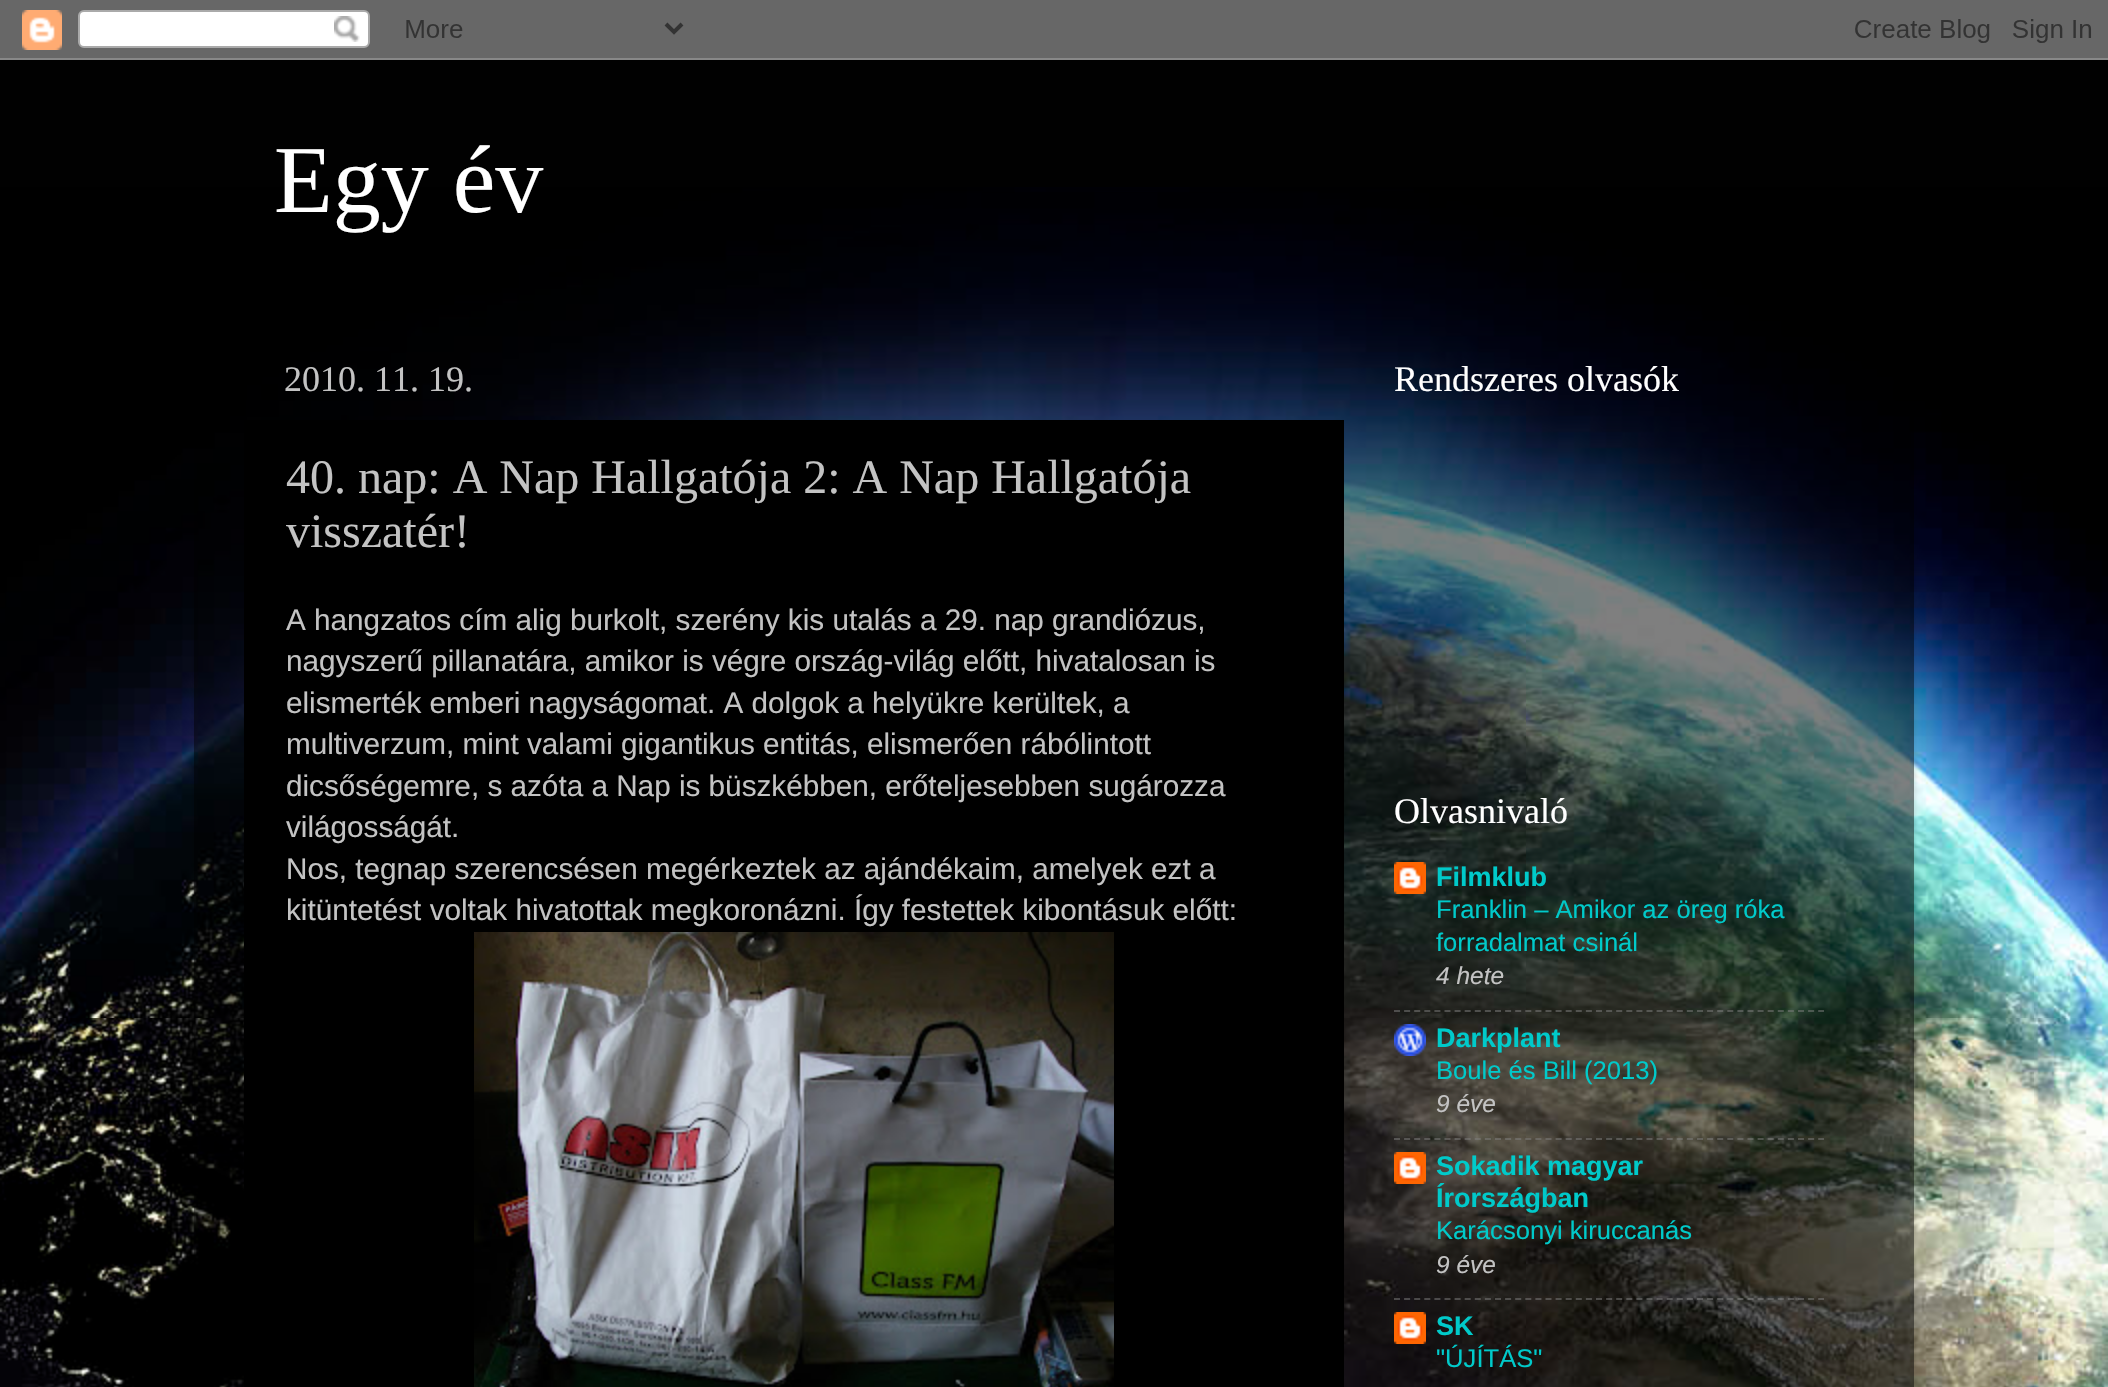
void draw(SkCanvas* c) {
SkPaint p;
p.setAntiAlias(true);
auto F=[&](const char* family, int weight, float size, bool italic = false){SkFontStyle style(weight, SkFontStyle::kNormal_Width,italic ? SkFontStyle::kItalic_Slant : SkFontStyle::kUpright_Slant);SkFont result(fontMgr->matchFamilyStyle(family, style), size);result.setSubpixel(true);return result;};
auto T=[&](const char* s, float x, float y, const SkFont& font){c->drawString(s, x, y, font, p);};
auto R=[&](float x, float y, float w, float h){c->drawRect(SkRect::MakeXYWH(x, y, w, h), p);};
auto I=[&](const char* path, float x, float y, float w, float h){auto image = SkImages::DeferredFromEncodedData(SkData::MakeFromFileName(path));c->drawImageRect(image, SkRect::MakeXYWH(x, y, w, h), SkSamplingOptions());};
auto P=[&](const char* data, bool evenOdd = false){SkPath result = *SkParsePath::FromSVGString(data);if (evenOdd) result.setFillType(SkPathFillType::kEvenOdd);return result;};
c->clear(0xff010101);
I("1.png",0,187,2108,1200);
c->save();
c->clipPath(P("M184 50h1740v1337h-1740zm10 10h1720v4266h-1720z",true),true);
p.setColor(0x26000000);
p.setMaskFilter(SkMaskFilter::MakeBlur(kNormal_SkBlurStyle, 3));
c->drawRect(SkRect::MakeXYWH(194,60,1720,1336),p);
p.setMaskFilter(nullptr);
c->restore();
I("2.png",0,0,2108,60);
p.setColor(0x80000000);
R(194,192,1720,1195);
auto f1 = F("Liberation Serif",400,96);
p.setColor(0xffffffff);
T("Egy év",274,212,f1);
auto f2 = F("Liberation Serif",400,36);
p.setColor(0xffc3c3c3);
T("2010. 11. 19.",284,391,f2);
p.setColor(0xff000000);
R(244,420,1100,967);
auto f3 = F("Liberation Serif",400,48);
p.setColor(0xffc3c3c3);
T("40. nap: A Nap Hallgatója 2: A Nap Hallgatója",286,493,f3);
T("visszatér!",286,547,f3);
auto f4 = F("Liberation Sans",400,29.7);
T("A hangzatos cím alig burkolt, szerény kis utalás a 29. nap grandiózus,",286,630,f4);
T("nagyszerű pillanatára, amikor is végre ország-világ előtt, hivatalosan is",286,671,f4);
T("elismerték emberi nagyságomat. A dolgok a helyükre kerültek, a",286,713,f4);
T("multiverzum, mint valami gigantikus entitás, elismerően rábólintott",286,754,f4);
T("dicsőségemre, s azóta a Nap is büszkébben, erőteljesebben sugározza",286,796,f4);
T("világosságát.",286,837,f4);
T("Nos, tegnap szerencsésen megérkeztek az ajándékaim, amelyek ezt a",286,879,f4);
T("kitüntetést voltak hivatottak megkoronázni. Így festettek kibontásuk előtt:",286,920,f4);
I("3.png",474,932,640,455);
p.setColor(0xffffffff);
T("Rendszeres olvasók",1394,391,f2);
T("Olvasnivaló",1394,823,f2);
I("4.png",1394,862,32,32);
auto f5 = F("Liberation Sans",700,27);
p.setColor(0xff00caca);
T("Filmklub",1436,886,f5);
auto f6 = F("Liberation Sans",400,25.6);
T("Franklin – Amikor az öreg róka",1436,918,f6);
T("forradalmat csinál",1436,951,f6);
auto f7 = F("Liberation Sans",400,24.5,true);
p.setColor(0xffc3c3c3);
T("4 hete",1436,984,f7);
p.setStroke(true);
p.setStrokeWidth(2);
p.setColor(0x80808080);
p.setPathEffect(SkDashPathEffect::Make({{6,4.1f}}, 0));
c->drawPath(P("M1394 1011h430"),p);
p.setPathEffect(nullptr);
I("5.png",1394,1024,32,32);
p.setStroke(false);
p.setColor(0xff00caca);
T("Darkplant",1436,1047,f5);
T("Boule és Bill (2013)",1436,1079,f6);
p.setColor(0xffc3c3c3);
T("9 éve",1436,1112,f7);
p.setStroke(true);
p.setColor(0x80808080);
p.setPathEffect(SkDashPathEffect::Make({{6,4.1f}}, 0));
c->drawPath(P("M1394 1139h430"),p);
p.setPathEffect(nullptr);
I("6.png",1394,1152,32,32);
p.setStroke(false);
p.setColor(0xff00caca);
T("Sokadik magyar",1436,1175,f5);
T("Írországban",1436,1207,f5);
T("Karácsonyi kiruccanás",1436,1239,f6);
p.setColor(0xffc3c3c3);
T("9 éve",1436,1273,f7);
p.setStroke(true);
p.setColor(0x80808080);
p.setPathEffect(SkDashPathEffect::Make({{6,4.1f}}, 0));
c->drawPath(P("M1394 1299h430"),p);
p.setPathEffect(nullptr);
I("7.png",1394,1312,32,32);
p.setStroke(false);
p.setColor(0xff00caca);
T("SK",1436,1335,f5);
T("\"ÚJÍTÁS\"",1436,1367,f6);
}
